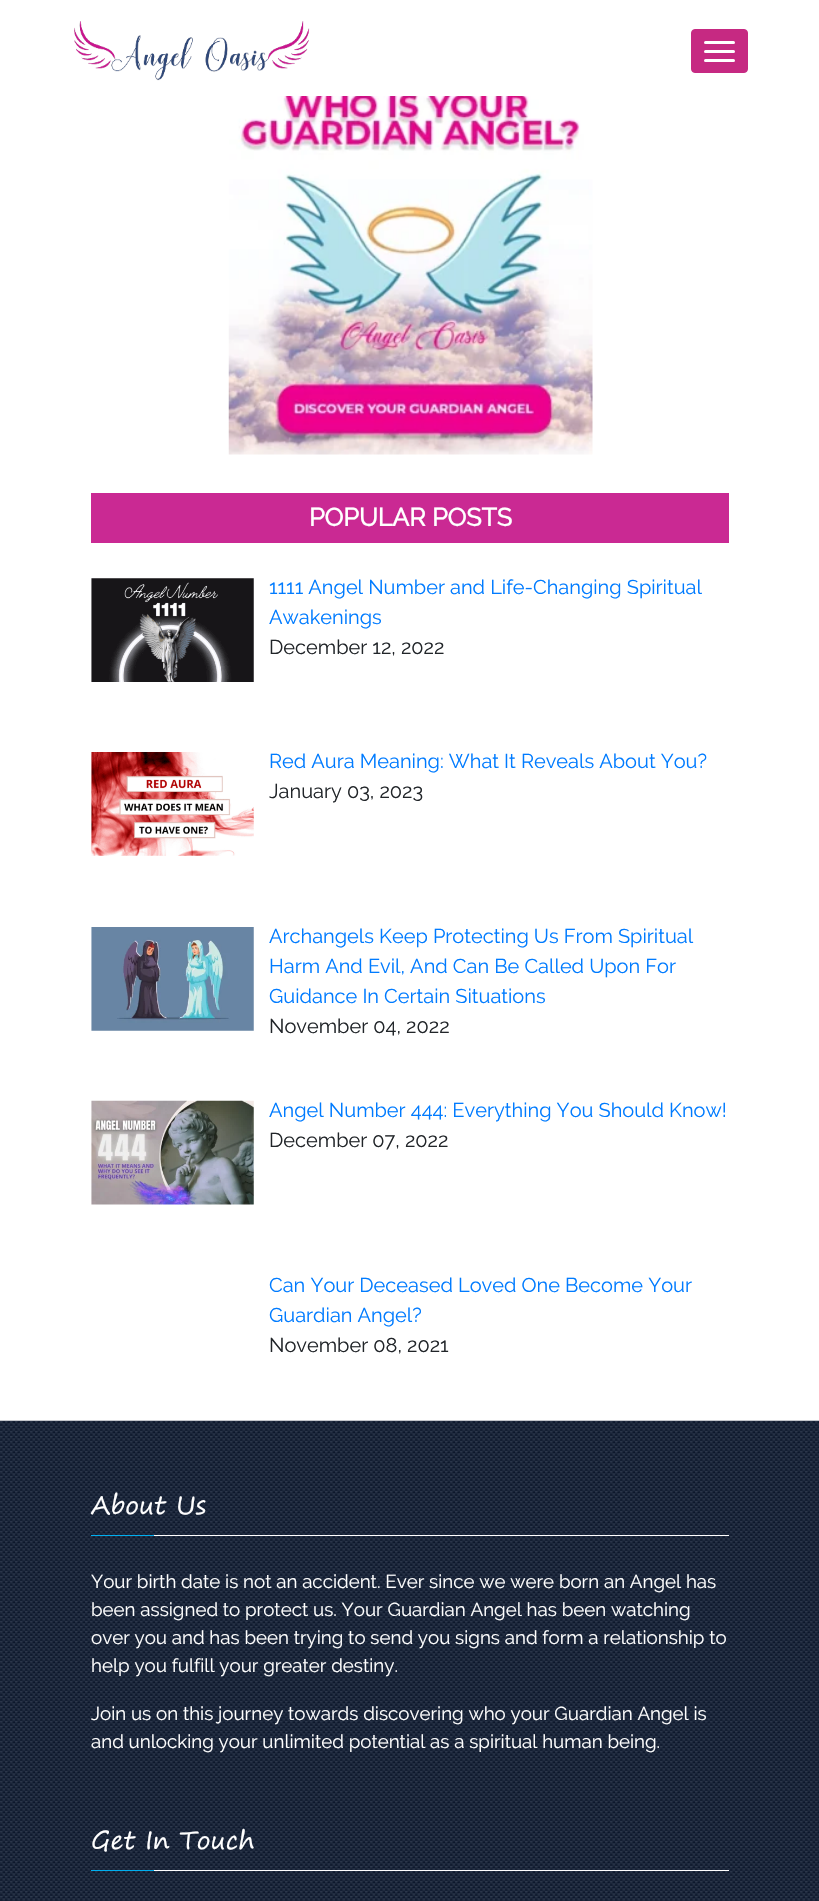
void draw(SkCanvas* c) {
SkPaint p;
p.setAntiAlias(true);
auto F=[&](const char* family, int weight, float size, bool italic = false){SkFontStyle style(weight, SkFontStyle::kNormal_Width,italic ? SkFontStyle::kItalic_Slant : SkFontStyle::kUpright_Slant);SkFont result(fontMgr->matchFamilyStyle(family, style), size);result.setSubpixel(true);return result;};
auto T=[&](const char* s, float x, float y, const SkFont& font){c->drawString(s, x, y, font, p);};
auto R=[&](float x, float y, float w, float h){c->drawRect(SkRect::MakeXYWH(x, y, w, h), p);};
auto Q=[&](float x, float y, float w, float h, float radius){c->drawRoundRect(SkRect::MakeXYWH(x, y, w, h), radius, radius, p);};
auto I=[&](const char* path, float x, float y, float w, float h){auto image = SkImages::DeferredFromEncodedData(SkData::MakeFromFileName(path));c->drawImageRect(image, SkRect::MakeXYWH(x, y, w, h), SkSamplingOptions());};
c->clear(0xffffffff);
I("1.png",74,21,236,60);
p.setColor(0xffc62982);
c->drawRoundRect(SkRect::MakeXYWH(691.5,29.5,56,43),3.5,3.5,p);
p.setStroke(true);
p.setStrokeWidth(1);
c->drawRoundRect(SkRect::MakeXYWH(691.5,29.5,56,43),3.5,3.5,p);
p.setStroke(false);
p.setColor(0xffffffff);
Q(704,41,31,3,1.5);
Q(704,50,31,3,1.5);
Q(704,59,31,3,1.5);
I("2.png",228,96,365,359);
p.setColor(0xffca2993);
R(91,493,638,50);
auto f1 = F("Raleway",700,25);
p.setColor(0xffffffff);
T("POPULAR POSTS",309,526,f1);
I("3.png",91,578,163,104);
auto f2 = F("Raleway",400,20);
p.setColor(0xff007bff);
T("1111 Angel Number and Life-Changing Spiritual",269,594,f2);
T("Awakenings",269,624,f2);
p.setColor(0xff212529);
T("December 12, 2022",269,654,f2);
I("4.png",91,752,163,104);
p.setColor(0xff007bff);
T("Red Aura Meaning: What It Reveals About You?",269,768,f2);
p.setColor(0xff212529);
T("January 03, 2023",269,798,f2);
I("5.png",91,927,163,104);
p.setColor(0xff007bff);
T("Archangels Keep Protecting Us From Spiritual",269,943,f2);
T("Harm And Evil, And Can Be Called Upon For",269,973,f2);
T("Guidance In Certain Situations",269,1003,f2);
p.setColor(0xff212529);
T("November 04, 2022",269,1033,f2);
I("6.png",91,1100,163,105);
p.setColor(0xff007bff);
T("Angel Number 444: Everything You Should Know!",269,1117,f2);
p.setColor(0xff212529);
T("December 07, 2022",269,1147,f2);
p.setColor(0xff007bff);
T("Can Your Deceased Loved One Become Your",269,1292,f2);
T("Guardian Angel?",269,1322,f2);
p.setColor(0xff212529);
T("November 08, 2021",269,1352,f2);
I("7.png",0,1420,819,481);
p.setColor(0xffffffff);
R(154,1535,575,1);
auto f3 = F("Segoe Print",400,25);
T("About Us",91,1514,f3);
p.setColor(0xff00aeef);
R(91,1535,63,1);
auto f4 = F("Raleway",400,18.75);
p.setColor(0xffffffff);
T("Your birth date is not an accident. Ever since we were born an Angel has",91,1588,f4);
T("been assigned to protect us. Your Guardian Angel has been watching",91,1616,f4);
T("over you and has been trying to send you signs and form a relationship to",91,1644,f4);
T("help you fulfill your greater destiny.",91,1672,f4);
T("Join us on this journey towards discovering who your Guardian Angel is",91,1720,f4);
T("and unlocking your unlimited potential as a spiritual human being.",91,1748,f4);
R(154,1870,575,1);
T("Get In Touch",91,1849,f3);
p.setColor(0xff00aeef);
R(91,1870,63,1);
}
